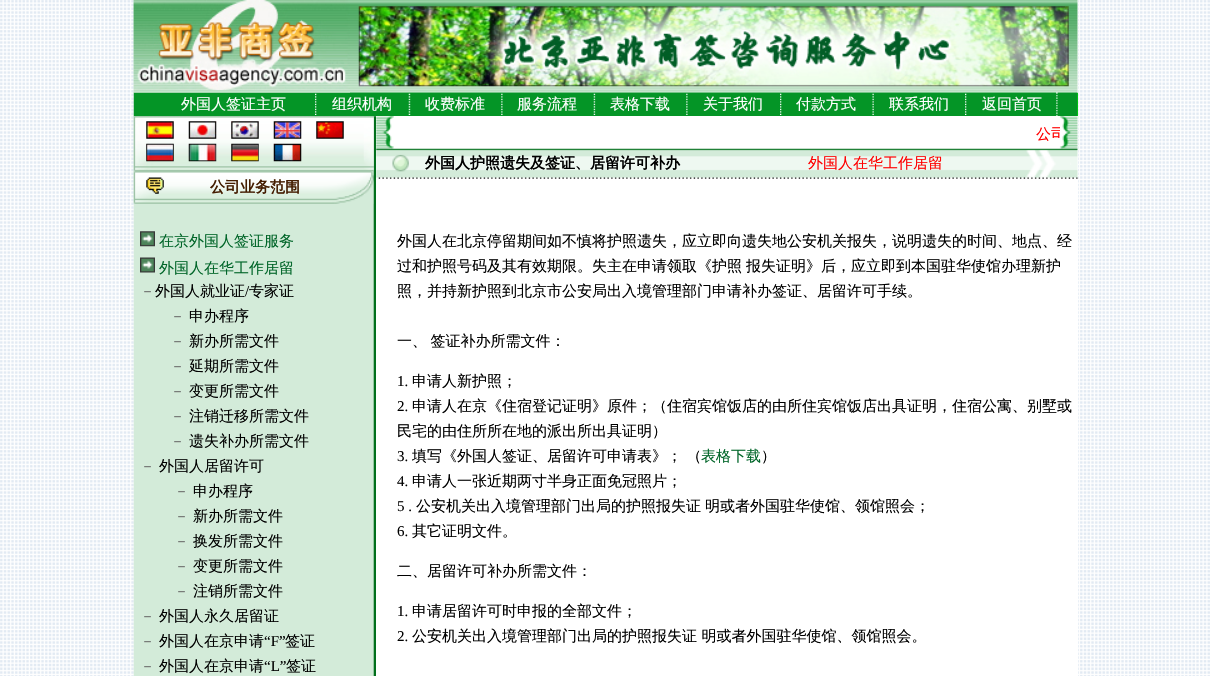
void draw(SkCanvas* c) {
SkPaint p;
p.setAntiAlias(true);
auto F=[&](const char* family, int weight, float size, bool italic = false){SkFontStyle style(weight, SkFontStyle::kNormal_Width,italic ? SkFontStyle::kItalic_Slant : SkFontStyle::kUpright_Slant);SkFont result(fontMgr->matchFamilyStyle(family, style), size);result.setSubpixel(true);return result;};
auto T=[&](const char* s, float x, float y, const SkFont& font){c->drawString(s, x, y, font, p);};
auto L=[&](const char* s, float x, float y, const SkFont& font, const SkPaint& ink, float letter, float word){std::vector<SkGlyphID> glyphs(font.countText(s, strlen(s), SkTextEncoding::kUTF8));std::vector<float> xs(glyphs.size());font.textToGlyphs(s, strlen(s), SkTextEncoding::kUTF8, glyphs);font.getXPos(glyphs, xs, x);float extra = 0;for (size_t i = 0; i < glyphs.size(); i++) {xs[i] += extra;extra += letter + word * (glyphs[i] == font.unicharToGlyph(' '));}c->drawTextBlob(SkTextBlob::MakeFromPosHGlyphs(glyphs, xs, y, font), 0, 0, ink);};
auto R=[&](float x, float y, float w, float h){c->drawRect(SkRect::MakeXYWH(x, y, w, h), p);};
auto I=[&](const char* path, float x, float y, float w, float h){auto image = SkImages::DeferredFromEncodedData(SkData::MakeFromFileName(path));c->drawImageRect(image, SkRect::MakeXYWH(x, y, w, h), SkSamplingOptions());};
c->clear(0xffffffff);
I("1.png",0,0,1210,676);
p.setColor(0xffffffff);
R(135,0,943,93);
I("2.png",133,0,945,93);
p.setColor(0xff00ed00);
R(1077,93,1,23);
I("5.png",133,92,945,25);
I("3.png",133,0,217,93);
I("4.png",358,6,711,81);
auto f1 = F("WenQuanYi Zen Hei",500,15);
p.setColor(0xffffffff);
T("外国人签证主页",181,109,f1);
I("6.png",315,93,2,22);
T("组织机构",332,109,f1);
I("7.png",408,93,3,22);
T("收费标准",425,109,f1);
I("8.png",501,93,2,22);
T("服务流程",517,109,f1);
I("9.png",593,93,3,22);
T("表格下载",610,109,f1);
I("8.png",686,93,2,22);
T("关于我们",703,109,f1);
I("6.png",780,93,2,22);
T("付款方式",796,109,f1);
I("10.png",872,93,2,22);
T("联系我们",889,109,f1);
I("6.png",965,93,2,22);
T("返回首页",982,109,f1);
I("11.png",133,116,243,560);
I("22.png",133,171,243,33);
I("12.png",133,116,241,56);
I("13.png",146,121,28,18);
I("14.png",188,121,29,18);
I("15.png",231,121,28,18);
I("16.png",273,121,29,18);
I("17.png",316,121,28,18);
I("18.png",146,143,28,19);
I("19.png",188,143,29,19);
I("20.png",231,143,28,19);
I("21.png",273,143,29,19);
auto f2 = F("WenQuanYi Zen Hei",700,15);
p.setColor(0xff441d01);
T("公司业务范围",210,192,f2);
I("23.png",140,231,15,16);
p.setColor(0xff006528);
T("在京外国人签证服务",159,246,f1);
I("24.png",140,257,15,16);
T("外国人在华工作居留",159,273,f1);
p.setColor(0xff666666);
T("－",140,296,f1);
p.setColor(0xff000000);
T("外国人就业证",155,296,f1);
auto f3 = F("Liberation Serif",400,15);
T("/",245,296,f3);
T("专家证",249,296,f1);
p.setColor(0xff666666);
T("－",170,321,f1);
p.setColor(0xff000000);
T("申办程序",189,321,f1);
p.setColor(0xff666666);
T("－",170,346,f1);
p.setColor(0xff000000);
T("新办所需文件",189,346,f1);
p.setColor(0xff666666);
T("－",170,371,f1);
p.setColor(0xff000000);
T("延期所需文件",189,371,f1);
p.setColor(0xff666666);
T("－",170,396,f1);
p.setColor(0xff000000);
T("变更所需文件",189,396,f1);
p.setColor(0xff666666);
T("－",170,421,f1);
p.setColor(0xff000000);
T("注销迁移所需文件",189,421,f1);
p.setColor(0xff666666);
T("－",170,446,f1);
p.setColor(0xff000000);
T("遗失补办所需文件",189,446,f1);
p.setColor(0xff666666);
T("－",140,471,f1);
p.setColor(0xff000000);
T("外国人居留许可",159,471,f1);
p.setColor(0xff666666);
T("－",174,496,f1);
p.setColor(0xff000000);
T("申办程序",193,496,f1);
p.setColor(0xff666666);
T("－",174,521,f1);
p.setColor(0xff000000);
T("新办所需文件",193,521,f1);
p.setColor(0xff666666);
T("－",174,546,f1);
p.setColor(0xff000000);
T("换发所需文件",193,546,f1);
p.setColor(0xff666666);
T("－",174,571,f1);
p.setColor(0xff000000);
T("变更所需文件",193,571,f1);
p.setColor(0xff666666);
T("－",174,596,f1);
p.setColor(0xff000000);
T("注销所需文件",193,596,f1);
p.setColor(0xff666666);
T("－",140,621,f1);
p.setColor(0xff000000);
T("外国人永久居留证",159,621,f1);
p.setColor(0xff666666);
T("－",140,646,f1);
p.setColor(0xff000000);
T("外国人在京申请",159,646,f1);
T("“F”",264,646,f3);
T("签证",285,646,f1);
p.setColor(0xff666666);
T("－",140,671,f1);
p.setColor(0xff000000);
T("外国人在京申请",159,671,f1);
T("“L”",264,671,f3);
T("签证",286,671,f1);
p.setColor(0xffffffff);
R(376,116,702,560);
I("25.png",376,116,702,33);
c->save();
c->clipRect(SkRect::MakeXYWH(394,124,666,17));
p.setColor(0xffff0000);
T("公司",1036,139,f1);
c->restore();
I("26.png",376,148,702,31);
p.setColor(0xff000000);
T("外国人护照遗失及签证、居留许可补办",425,168,f2);
p.setColor(0xffff0000);
T("外国人在华工作居留",808,168,f1);
p.setColor(0xff000000);
T("外国人在北京停留期间如不慎将护照遗失，应立即向遗失地公安机关报失，说明遗失的时间、地点、经",397,246,f1);
T("过和护照号码及其有效期限。失主在申请领取《护照",397,271,f1);
T("报失证明》后，应立即到本国驻华使馆办理新护",746,271,f1);
T("照，并持新护照到北京市公安局出入境管理部门申请补办签证、居留许可手续。",397,296,f1);
L("一、 签证补办所需文件：",397,346,f1,p,0,-1);
T("1.",397,386,f3);
T("申请人新护照；",412,386,f1);
T("2.",397,411,f3);
T("申请人在京《住宿登记证明》原件；（住宿宾馆饭店的由所住宾馆饭店出具证明，住宿公寓、别墅或",412,411,f1);
T("民宅的由住所所在地的派出所出具证明）",397,436,f1);
T("3.",397,461,f3);
T("填写《外国人签证、居留许可申请表》； （",412,461,f1);
p.setColor(0xff006528);
T("表格下载",701,461,f1);
p.setColor(0xff000000);
T("）",761,461,f1);
T("4.",397,486,f3);
T("申请人一张近期两寸半身正面免冠照片；",412,486,f1);
T("5 .",397,511,f3);
T("公安机关出入境管理部门出局的护照报失证",416,511,f1);
T("明或者外国驻华使馆、领馆照会；",705,511,f1);
T("6.",397,536,f3);
T("其它证明文件。",412,536,f1);
T("二、居留许可补办所需文件：",397,576,f1);
T("1.",397,616,f3);
T("申请居留许可时申报的全部文件；",412,616,f1);
T("2.",397,641,f3);
T("公安机关出入境管理部门出局的护照报失证 明或者外国驻华使馆、领馆照会。",412,641,f1);
}
